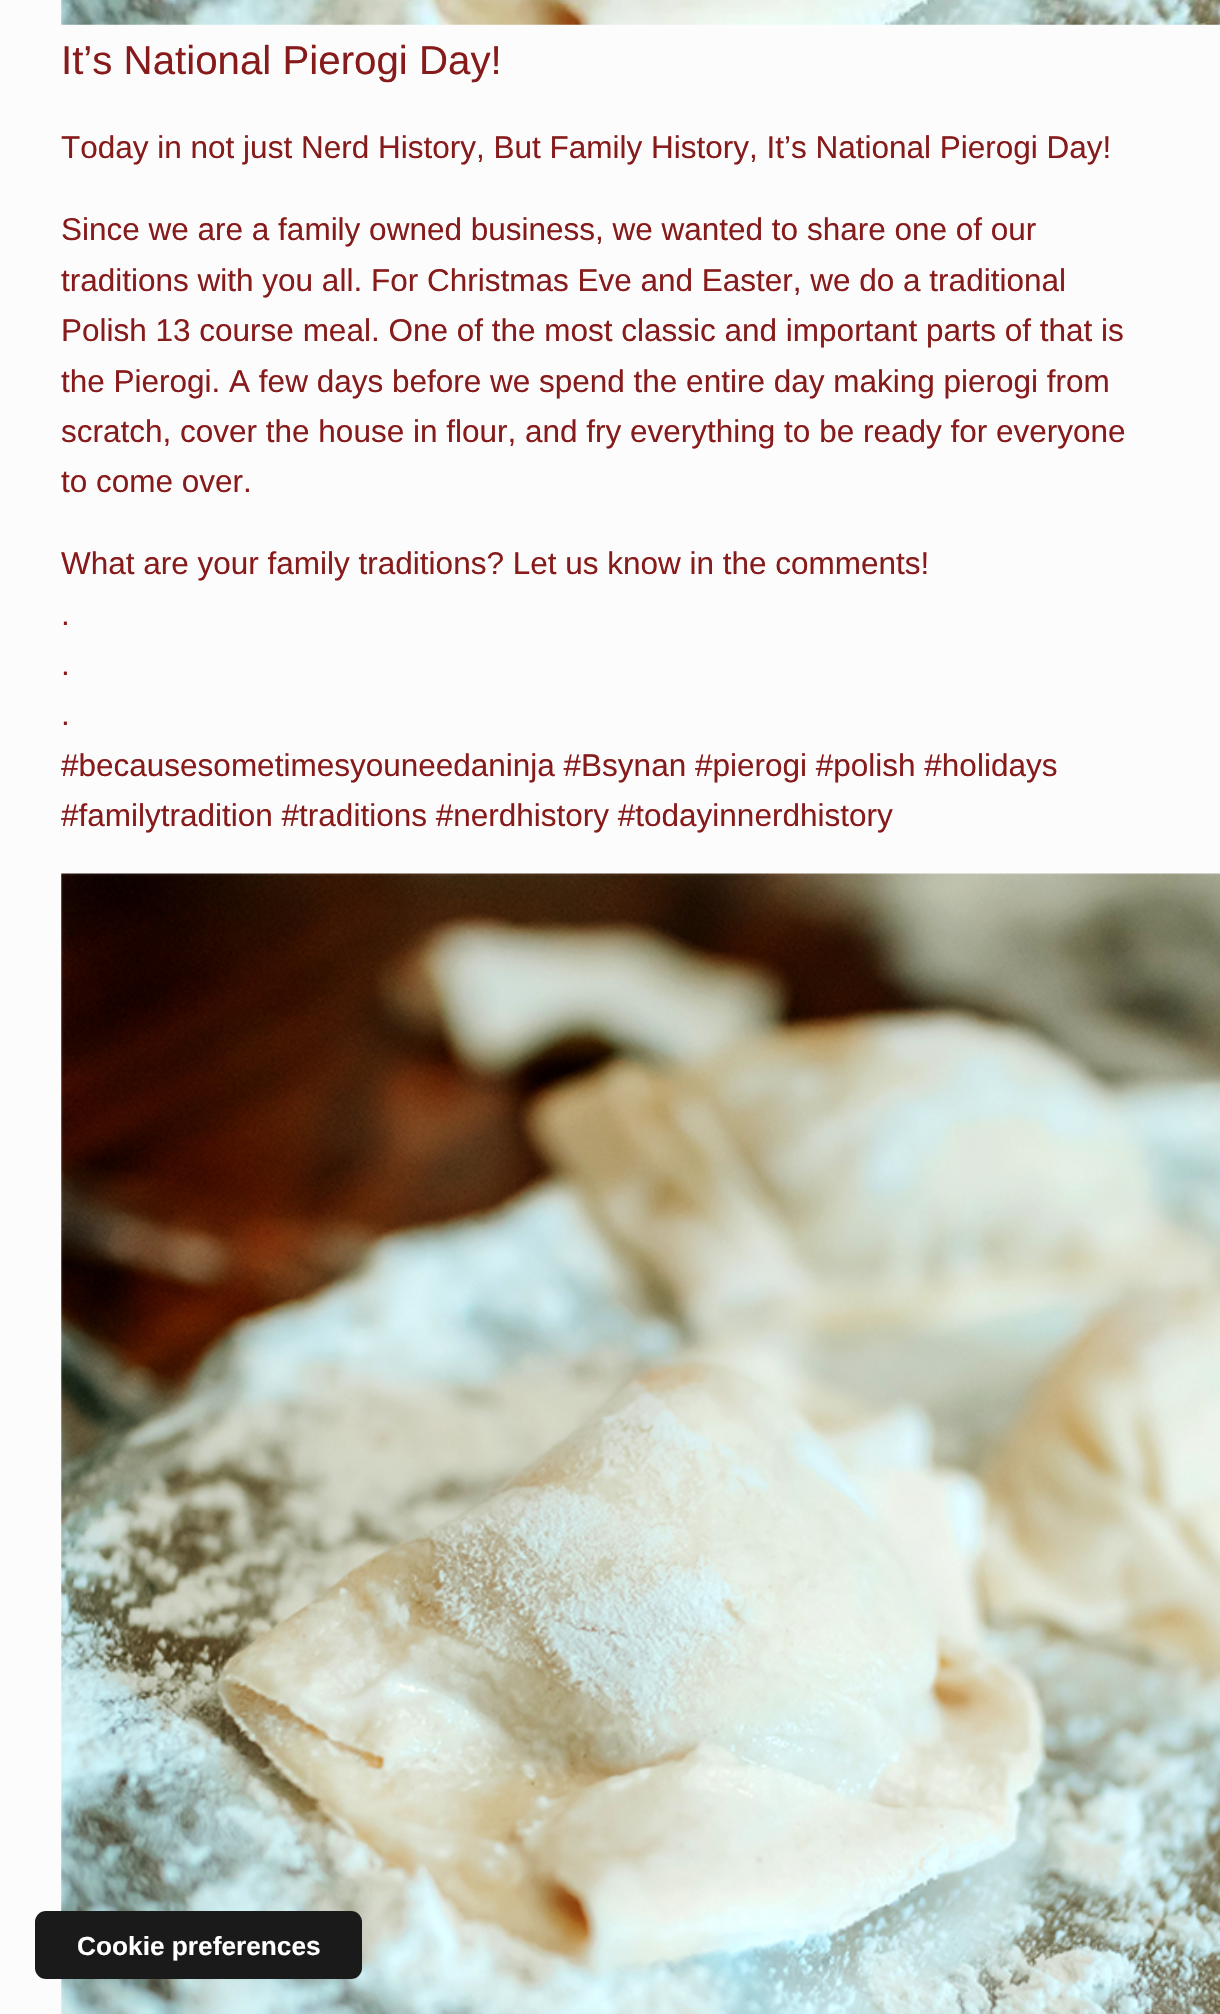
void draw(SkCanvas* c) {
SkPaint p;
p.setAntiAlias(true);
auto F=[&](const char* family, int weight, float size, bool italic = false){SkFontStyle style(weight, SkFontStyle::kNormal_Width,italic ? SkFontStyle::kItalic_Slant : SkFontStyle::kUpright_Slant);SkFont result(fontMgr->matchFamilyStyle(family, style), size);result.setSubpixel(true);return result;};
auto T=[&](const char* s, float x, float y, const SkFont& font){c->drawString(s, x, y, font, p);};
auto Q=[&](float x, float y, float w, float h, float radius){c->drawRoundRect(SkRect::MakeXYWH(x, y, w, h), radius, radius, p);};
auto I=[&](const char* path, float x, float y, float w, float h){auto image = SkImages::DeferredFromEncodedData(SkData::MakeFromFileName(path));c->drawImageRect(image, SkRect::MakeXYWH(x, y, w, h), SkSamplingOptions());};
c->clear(0xfffcfcfc);
I("1.png",61,0,1159,25);
auto f1 = F("Liberation Sans",400,40.25);
p.setColor(0xff871b1b);
T("It’s National Pierogi Day!",61,74,f1);
auto f2 = F("Liberation Sans",400,31.5);
T("Today in not just Nerd History, But Family History, It’s National Pierogi Day!",61,158,f2);
T("Since we are a family owned business, we wanted to share one of our",61,240,f2);
T("traditions with you all. For Christmas Eve and Easter, we do a traditional",61,291,f2);
T("Polish 13 course meal. One of the most classic and important parts of that is",61,341,f2);
T("the Pierogi. A few days before we spend the entire day making pierogi from",61,392,f2);
T("scratch, cover the house in flour, and fry everything to be ready for everyone",61,442,f2);
T("to come over.",61,492,f2);
T("What are your family traditions? Let us know in the comments!",61,574,f2);
T(".",61,625,f2);
T(".",61,675,f2);
T(".",61,725,f2);
T("#becausesometimesyouneedaninja #Bsynan #pierogi #polish #holidays",61,776,f2);
T("#familytradition #traditions #nerdhistory #todayinnerdhistory",61,826,f2);
I("2.png",61,873,1159,1141);
p.setColor(0xff1a1a1a);
Q(35,1911,327,68,11);
auto f3 = F("Liberation Sans",700,26.25);
p.setColor(0xffffffff);
T("Cookie preferences",77,1955,f3);
}
